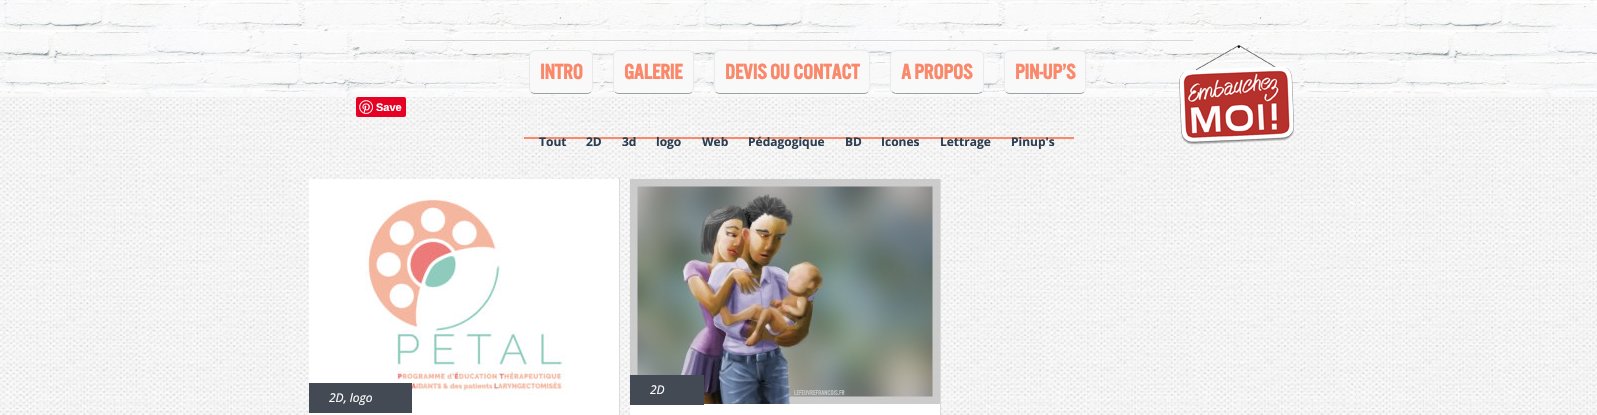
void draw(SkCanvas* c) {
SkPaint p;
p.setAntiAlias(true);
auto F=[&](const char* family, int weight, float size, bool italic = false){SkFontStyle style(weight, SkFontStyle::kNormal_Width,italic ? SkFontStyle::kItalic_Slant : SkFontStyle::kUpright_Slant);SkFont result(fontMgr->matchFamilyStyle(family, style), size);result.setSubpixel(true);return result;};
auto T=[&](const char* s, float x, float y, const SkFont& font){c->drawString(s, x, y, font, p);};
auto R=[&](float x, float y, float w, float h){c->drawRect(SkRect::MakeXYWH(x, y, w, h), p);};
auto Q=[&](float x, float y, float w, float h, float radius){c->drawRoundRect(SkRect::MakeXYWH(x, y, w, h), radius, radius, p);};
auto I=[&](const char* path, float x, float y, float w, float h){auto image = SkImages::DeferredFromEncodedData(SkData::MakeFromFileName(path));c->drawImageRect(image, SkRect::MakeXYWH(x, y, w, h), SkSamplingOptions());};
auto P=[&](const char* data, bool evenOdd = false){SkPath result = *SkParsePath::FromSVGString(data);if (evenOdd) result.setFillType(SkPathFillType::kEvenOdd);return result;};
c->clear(0xffffffff);
I("1.png",0,97,1597,318);
I("2.png",0,0,1597,97);
I("3.png",405,40,788,2);
p.setColor(0xfff9f9f9);
Q(529,50,64,44,6);
p.setStroke(true);
p.setStrokeWidth(1);
p.setColor(0xff98a2a4);
c->drawPath(P("M591 92c-1 1-2.5 1.5-4 1.5h-52c-1.5 0-3-.5-4-1.5"),p);
p.setColor(0xffe9e9e9);
c->drawPath(P("M531 92c-1-1-1.5-2.5-1.5-4v-32c0-1.5 .5-3 1.5-4c1-1 2.5-1.5 4-1.5h52c1.5 0 3 .5 4 1.5c1 1 1.5 2.5 1.5 4v32c0 1.5-.5 3-1.5 4"),p);
auto f1 = F("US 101",700,22);
p.setStroke(false);
p.setColor(0xfffa896b);
T("INTRO",540,79,f1);
p.setColor(0xfff9f9f9);
Q(613,50,81,44,6);
p.setStroke(true);
p.setColor(0xff98a2a4);
c->drawPath(P("M692 92c-1 1-2.5 1.5-4 1.5h-69c-1.5 0-3-.5-4-1.5"),p);
p.setColor(0xffe9e9e9);
c->drawPath(P("M615 92c-1-1-1.5-2.5-1.5-4v-32c0-1.5 .5-3 1.5-4c1-1 2.5-1.5 4-1.5h69c1.5 0 3 .5 4 1.5c1 1 1.5 2.5 1.5 4v32c0 1.5-.5 3-1.5 4"),p);
p.setStroke(false);
p.setColor(0xfffa896b);
T("GALERIE",624,79,f1);
p.setColor(0xfff9f9f9);
Q(714,50,156,44,6);
p.setStroke(true);
p.setColor(0xff98a2a4);
c->drawPath(P("M868 92c-1 1-2.5 1.5-4 1.5h-144c-1.5 0-3-.5-4-1.5"),p);
p.setColor(0xffe9e9e9);
c->drawPath(P("M716 92c-3-3.5-1.5-11-1.5-14.5c0-32.5-5-27 29.5-27h96c34.5 0 29.5-5.5 29.5 27c0 3.5 1.5 11-1.5 14.5"),p);
p.setStroke(false);
p.setColor(0xfffa896b);
T("DEVIS OU CONTACT",725,79,f1);
p.setColor(0xfff9f9f9);
Q(890,50,94,44,6);
p.setStroke(true);
p.setColor(0xff98a2a4);
c->drawPath(P("M982 92l-3.5 1.5h-83l-3.5-1.5"),p);
p.setColor(0xffe9e9e9);
c->drawPath(P("M892 92c-2.5-2.5-1.5-6.5-1.5-9.5v-10.5c0-23-3.5-21.5 19-21.5h55c22.5 0 19-1.5 19 21.5v10.5c0 3 1 7-1.5 9.5"),p);
p.setStroke(false);
p.setColor(0xfffa896b);
T("A PROPOS",901,79,f1);
p.setColor(0xfff9f9f9);
Q(1004,50,82,44,6);
p.setStroke(true);
p.setColor(0xff98a2a4);
c->drawPath(P("M1084 92c-1 1-2.5 1.5-4 1.5h-70c-1.5 0-3-.5-4-1.5"),p);
p.setColor(0xffe9e9e9);
c->drawPath(P("M1006 92c-2.5-2.5-1.5-6.5-1.5-9.5v-10.5c0-22-4-21.5 17-21.5h47c21 0 17-.5 17 21.5v10.5c0 3 1 7-1.5 9.5"),p);
p.setStroke(false);
p.setColor(0xfffa896b);
T("PIN-UP’S",1015,79,f1);
I("4.png",1179,45,115,100);
p.setColor(0xffe60023);
Q(356,97,50,20,2);
I("5.png",359,100,14,14);
auto f2 = F("Liberation Sans",700,11);
p.setColor(0xffffffff);
T("Save",376,111,f2);
p.setColor(0xfffa896b);
R(524,137,550,2);
auto f3 = F("Open Sans",700,12);
p.setColor(0xff2c3e50);
T("Tout",539,146,f3);
T("2D",586,146,f3);
T("3d",622,146,f3);
T("logo",656,146,f3);
T("Web",702,146,f3);
T("Pédagogique",748,146,f3);
T("BD",845,146,f3);
T("Icones",881,146,f3);
T("Lettrage",940,146,f3);
T("Pinup's",1011,146,f3);
p.setColor(0xffffffff);
R(630,404,310,11);
p.setColor(0xffdbdbdb);
R(940,179,1,236);
I("6.png",630,179,310,225);
p.setColor(0xff434a54);
R(630,375,74,30);
auto f4 = F("Open Sans",400,12,true);
p.setColor(0xffffffff);
T("2D",650,394,f4);
R(309,179,310,236);
p.setColor(0xffdbdbdb);
R(619,179,1,236);
I("7.png",365,195,200,200);
p.setColor(0xff434a54);
R(309,383,103,30);
p.setColor(0xffffffff);
T("2D, logo",329,402,f4);
}
